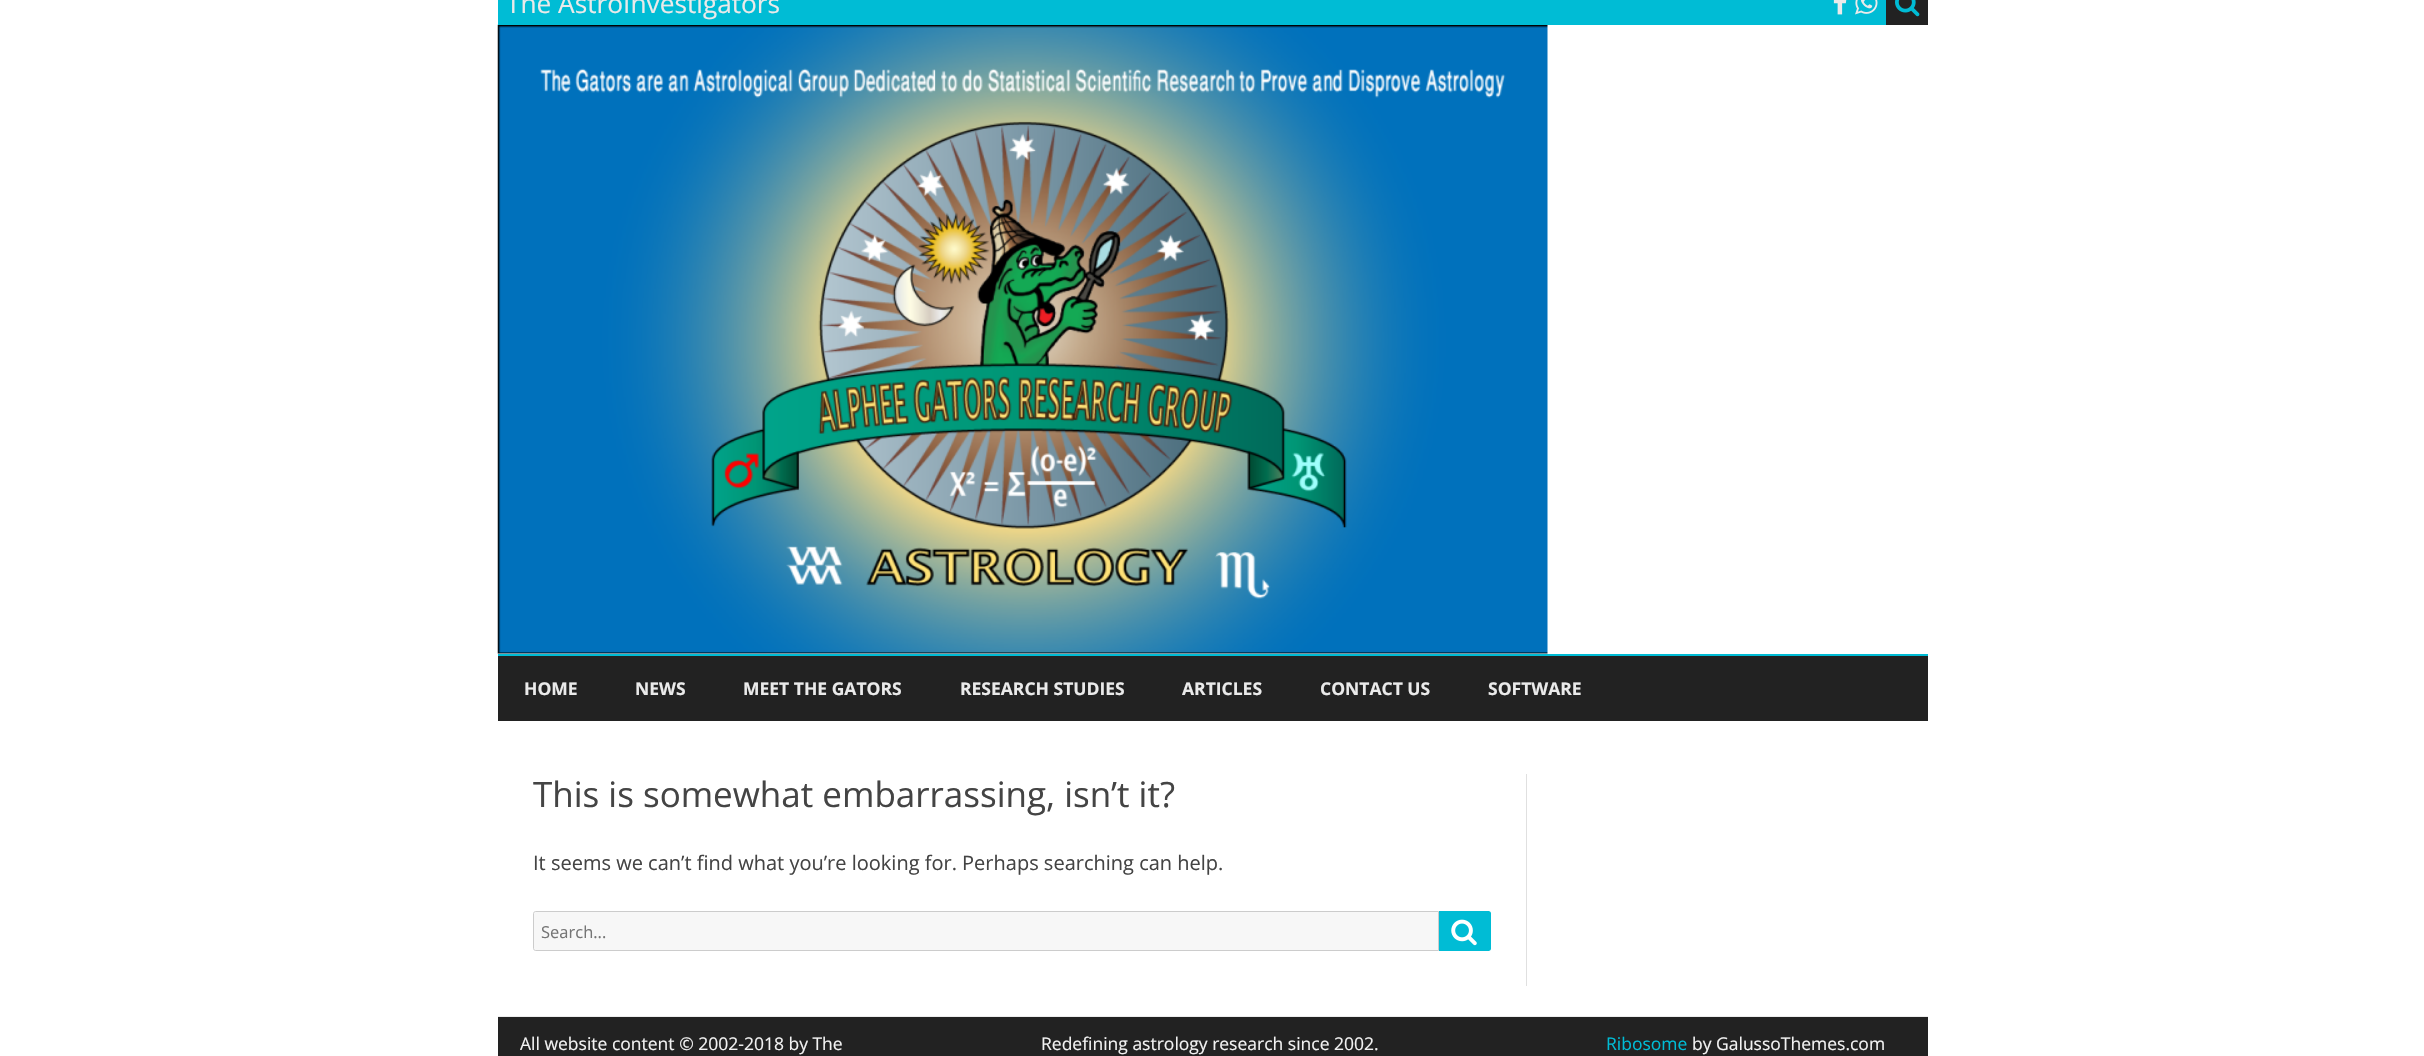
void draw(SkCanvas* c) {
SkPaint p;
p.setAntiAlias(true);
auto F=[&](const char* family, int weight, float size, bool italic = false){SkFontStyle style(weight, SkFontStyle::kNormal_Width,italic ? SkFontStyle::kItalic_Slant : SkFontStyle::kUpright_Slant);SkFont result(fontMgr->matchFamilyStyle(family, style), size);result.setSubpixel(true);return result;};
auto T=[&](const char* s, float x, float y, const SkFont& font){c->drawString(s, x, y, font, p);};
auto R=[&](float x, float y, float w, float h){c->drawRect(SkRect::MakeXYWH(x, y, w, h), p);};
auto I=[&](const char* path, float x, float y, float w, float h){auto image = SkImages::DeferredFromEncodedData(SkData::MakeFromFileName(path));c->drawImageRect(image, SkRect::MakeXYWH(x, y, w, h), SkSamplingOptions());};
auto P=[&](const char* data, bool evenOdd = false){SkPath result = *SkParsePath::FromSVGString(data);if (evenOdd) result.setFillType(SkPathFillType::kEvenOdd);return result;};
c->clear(0xffffffff);
I("4.png",497,24,1051,630);
p.setColor(0xff00bcd5);
R(498,0,1388,25);
auto f1 = F("Open Sans",400,26.25);
p.setColor(0xffeaeaea);
T("The AstroInvestigators",506,13,f1);
I("1.png",1833,0,14,15);
I("2.png",1855,0,23,15);
p.setColor(0xff222222);
R(1886,0,42,25);
I("3.png",1895,0,25,17);
p.setColor(0xff00bcd5);
R(498,654,1430,2);
p.setColor(0xff222222);
R(498,656,1430,65);
auto f2 = F("Open Sans",700,17.5);
p.setColor(0xffeaeaea);
T("HOME",524,695,f2);
T("NEWS",635,695,f2);
T("MEET THE GATORS",743,695,f2);
T("RESEARCH STUDIES",960,695,f2);
T("ARTICLES",1182,695,f2);
T("CONTACT US",1320,695,f2);
T("SOFTWARE",1488,695,f2);
p.setColor(0xffe0e0e0);
R(1526,774,1,212);
auto f3 = F("Open Sans",400,35);
p.setColor(0xff444444);
T("This is somewhat embarrassing, isn’t it?",533,807,f3);
auto f4 = F("Open Sans",400,20);
T("It seems we can’t find what you’re looking for. Perhaps searching can help.",533,870,f4);
p.setColor(0xfff7f7f7);
c->drawPath(P("M535.5 911.5h903v39h-903c-1 0-2-1-2-2v-35c0-1 1-2 2-2z"),p);
p.setStroke(true);
p.setStrokeWidth(1);
p.setColor(0xffcccccc);
c->drawPath(P("M535.5 911.5h903v39h-903c-1 0-2-1-2-2v-35c0-1 1-2 2-2z"),p);
auto f5 = F("Open Sans",400,16.5);
p.setStroke(false);
p.setColor(0xff757575);
T("Search...",541,938,f5);
p.setColor(0xff00bcd5);
c->drawPath(P("M1439 911h49.5c1.5 0 2.5 1 2.5 2.5v35c0 1.5-1 2.5-2.5 2.5h-49.5z"),p);
I("5.png",1451,919,26,27);
p.setColor(0xff222222);
R(498,1017,1430,39);
p.setColor(0xffededed);
R(498,1016,1430,1);
auto f6 = F("Open Sans",400,17.5);
p.setColor(0xfff2f2f2);
T("All website content © 2002-2018 by The",520,1050,f6);
T("Redefining astrology research since 2002.",1041,1050,f6);
p.setColor(0xff00bcd5);
T("Ribosome",1606,1050,f6);
p.setColor(0xfff2f2f2);
T("by GalussoThemes.com",1692,1050,f6);
}
